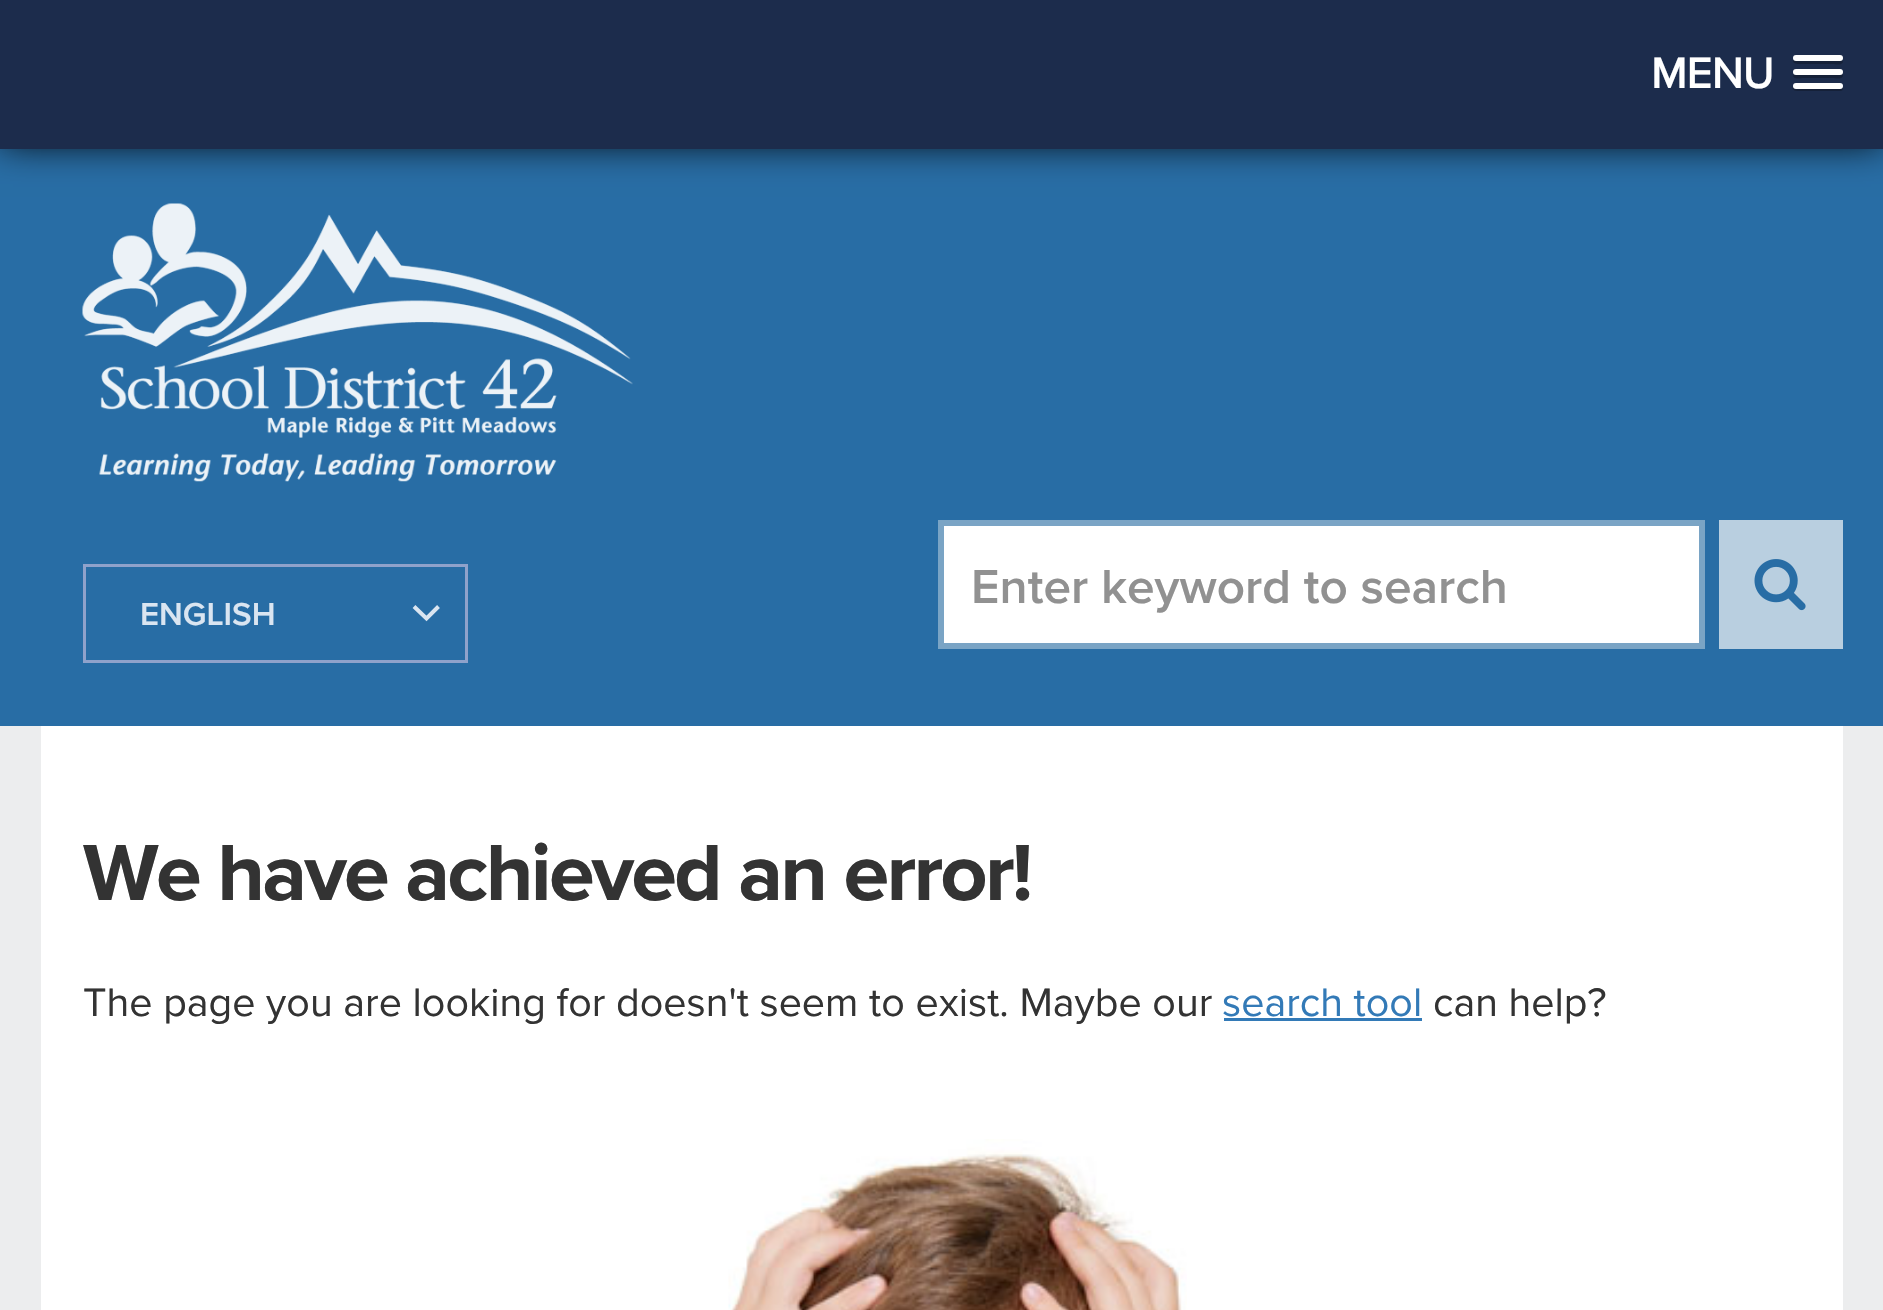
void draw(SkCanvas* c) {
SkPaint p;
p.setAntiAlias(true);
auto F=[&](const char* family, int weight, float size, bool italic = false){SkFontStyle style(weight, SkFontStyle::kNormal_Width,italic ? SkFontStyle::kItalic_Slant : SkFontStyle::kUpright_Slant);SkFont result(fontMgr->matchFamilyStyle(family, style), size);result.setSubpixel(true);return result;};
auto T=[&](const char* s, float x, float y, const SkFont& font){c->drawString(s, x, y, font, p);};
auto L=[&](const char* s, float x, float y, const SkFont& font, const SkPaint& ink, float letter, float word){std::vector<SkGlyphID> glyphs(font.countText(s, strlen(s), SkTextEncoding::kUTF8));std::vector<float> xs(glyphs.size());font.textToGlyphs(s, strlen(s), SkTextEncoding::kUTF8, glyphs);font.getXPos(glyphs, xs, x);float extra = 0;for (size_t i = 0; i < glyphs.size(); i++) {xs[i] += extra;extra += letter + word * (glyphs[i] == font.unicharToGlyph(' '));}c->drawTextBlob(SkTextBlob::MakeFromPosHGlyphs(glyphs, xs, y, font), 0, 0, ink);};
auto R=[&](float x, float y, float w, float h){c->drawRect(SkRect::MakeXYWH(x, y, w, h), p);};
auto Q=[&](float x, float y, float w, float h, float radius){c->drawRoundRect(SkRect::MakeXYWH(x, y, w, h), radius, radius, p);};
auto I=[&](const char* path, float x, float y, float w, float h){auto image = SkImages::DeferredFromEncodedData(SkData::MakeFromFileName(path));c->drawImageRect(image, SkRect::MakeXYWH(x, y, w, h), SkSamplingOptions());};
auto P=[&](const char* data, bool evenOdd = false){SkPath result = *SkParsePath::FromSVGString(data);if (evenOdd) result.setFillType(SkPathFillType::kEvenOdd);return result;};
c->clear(0xffecedee);
p.setColor(0xff286da5);
R(0,149,1883,577);
p.setColor(0xff000000);
p.setMaskFilter(SkMaskFilter::MakeBlur(kNormal_SkBlurStyle, 18));
c->drawRect(SkRect::MakeXYWH(0,-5,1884,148),p);
p.setMaskFilter(nullptr);
p.setColor(0xff1c2c4c);
R(0,0,1883,149);
auto f1 = F("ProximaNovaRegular",700,44);
p.setColor(0xffffffff);
T("MENU",1651,88,f1);
p.setColor(0xff152139);
c->drawPath(P("M1794 59c-5 6 9 5 9 5h30c1 0 9 2 10-2l-1-3l-2 1h-45z"),p);
p.setColor(0xffffffff);
Q(1793,55,50,6,3);
p.setColor(0xff152139);
c->drawPath(P("M1794 73l-1 3c1 4 9 2 10 2h30c1 0 9 2 10-2c0-1 0-2-1-3l-2 1h-45z"),p);
p.setColor(0xffffffff);
Q(1793,69,50,6,3);
p.setColor(0xff152139);
c->drawPath(P("M1793 87c-3 5 9 4 10 4h38c2 0 3-3 1-5c0 1-1 2-2 2h-44c-1 0-2-1-3-1z"),p);
p.setColor(0xffffffff);
Q(1793,83,50,6,3);
I("1.png",82,203,551,279);
p.setStroke(true);
p.setStrokeWidth(4);
p.setColor(0xffdae5f1);
c->drawPath(P("M438.5 606.5l-12 12l-12.5-12"),p);
p.setStrokeWidth(3);
p.setColor(0xff8fa2cb);
c->drawRect(SkRect::MakeXYWH(84.5,565.5,382,96),p);
auto f2 = F("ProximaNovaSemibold",400,33);
p.setStroke(false);
p.setColor(0xffdae5f1);
T("ENGLISH",140,625,f2);
p.setColor(0xffffffff);
c->drawRect(SkRect::MakeXYWH(941,523,761,123),p);
p.setStroke(true);
p.setStrokeWidth(6);
p.setColor(0xff7aa4c5);
c->drawRect(SkRect::MakeXYWH(941,523,761,123),p);
auto f3 = F("ProximaNovaSemibold",400,49.5);
p.setStroke(false);
p.setColor(0xff919191);
T("Enter keyword to search",971,603,f3);
p.setColor(0xffb9cfe0);
R(1719,520,124,129);
I("2.png",1754,559,52,52);
p.setColor(0xffffffff);
R(41,726,1802,584);
auto f4 = F("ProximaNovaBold",400,82.5);
p.setColor(0xff333333);
L("We have achieved an error!",83,900,f4,p,-2.75,0);
auto f5 = F("ProximaNovaRegular",400,41.25);
T("The page you are looking for doesn't seem to exist. Maybe our",83,1016,f5);
p.setColor(0xff337ab7);
T("search tool",1222,1016,f5);
R(1224,1018,198,3);
p.setColor(0xff333333);
T("can help?",1433,1016,f5);
I("3.png",728,1139,459,171);
}
